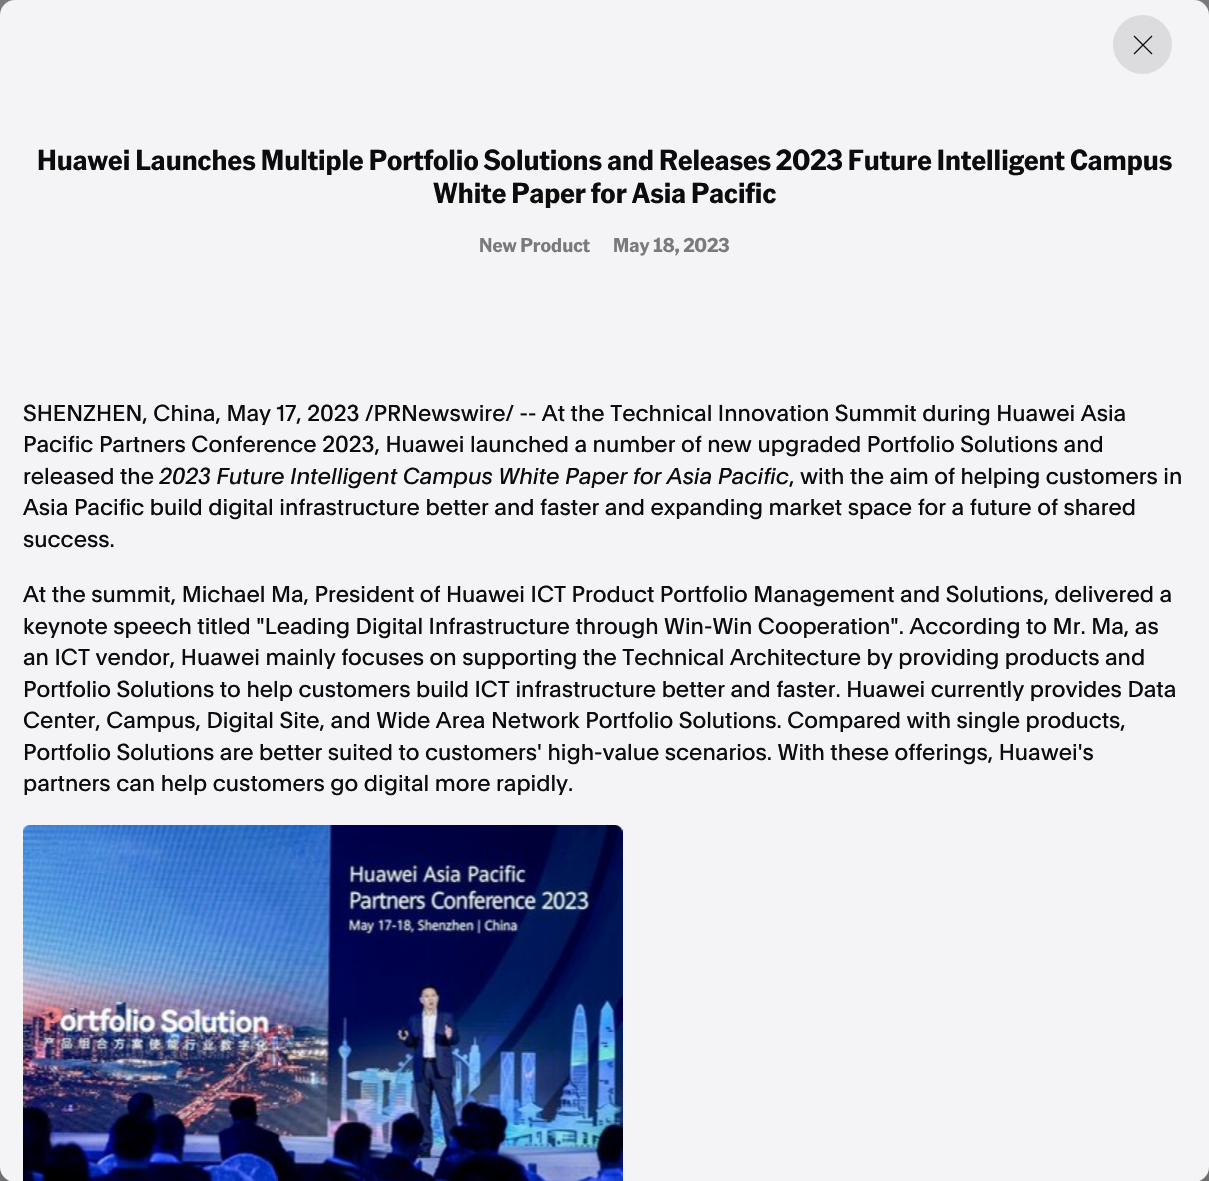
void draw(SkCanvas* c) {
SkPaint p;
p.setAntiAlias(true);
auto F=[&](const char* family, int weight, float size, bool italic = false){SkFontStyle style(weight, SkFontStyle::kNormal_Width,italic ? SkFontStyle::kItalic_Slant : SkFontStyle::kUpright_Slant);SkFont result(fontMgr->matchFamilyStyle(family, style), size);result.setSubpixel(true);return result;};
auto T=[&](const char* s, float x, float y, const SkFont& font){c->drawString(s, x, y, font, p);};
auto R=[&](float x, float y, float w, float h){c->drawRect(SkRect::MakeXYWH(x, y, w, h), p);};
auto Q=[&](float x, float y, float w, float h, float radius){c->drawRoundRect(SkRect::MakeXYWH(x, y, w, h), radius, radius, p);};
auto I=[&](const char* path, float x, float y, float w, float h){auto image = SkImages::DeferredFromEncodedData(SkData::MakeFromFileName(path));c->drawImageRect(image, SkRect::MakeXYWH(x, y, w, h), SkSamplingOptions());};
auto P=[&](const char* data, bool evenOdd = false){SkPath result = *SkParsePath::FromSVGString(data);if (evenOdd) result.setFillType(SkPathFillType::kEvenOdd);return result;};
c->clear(0xff7a7a7c);
p.setColor(0xff6e6e6f);
R(0,1167,1209,14);
p.setColor(0xfff4f4f7);
Q(0,0,1209,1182,15);
p.setColor(0xffdcdcde);
c->drawCircle(1142.5,44.5,29.5,p);
p.setStroke(true);
p.setStrokeWidth(1.2);
p.setStrokeJoin(SkPaint::kRound_Join);
p.setColor(0xff0c0c0c);
c->drawPath(P("M1152 36l-18 18m18 0l-18-18"),p);
auto f1 = F("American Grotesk",700,28.15);
p.setStroke(false);
T("Huawei Launches Multiple Portfolio Solutions and Releases 2023 Future Intelligent Campus",37,170,f1);
T("White Paper for Asia Pacific",433,203,f1);
auto f2 = F("American Grotesk",700,19.5);
p.setColor(0xff7a7a7c);
T("New Product",479,252,f2);
T("May 18, 2023",613,252,f2);
auto f3 = F("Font",400,22.5);
p.setColor(0xff0c0c0c);
T("SHENZHEN, China, May 17, 2023 /PRNewswire/ -- At the Technical Innovation Summit during Huawei Asia",23,421,f3);
T("Pacific Partners Conference 2023, Huawei launched a number of new upgraded Portfolio Solutions and",23,452,f3);
T("released the",23,484,f3);
auto f4 = F("Font",400,22.5,true);
T("2023 Future Intelligent Campus White Paper for Asia Pacific",159,484,f4);
T(", with the aim of helping customers in",789,484,f3);
T("Asia Pacific build digital infrastructure better and faster and expanding market space for a future of shared",23,515,f3);
T("success.",23,547,f3);
T("At the summit, Michael Ma, President of Huawei ICT Product Portfolio Management and Solutions, delivered a",23,602,f3);
T("keynote speech titled \"Leading Digital Infrastructure through Win-Win Cooperation\". According to Mr. Ma, as",23,634,f3);
T("an ICT vendor, Huawei mainly focuses on supporting the Technical Architecture by providing products and",23,665,f3);
T("Portfolio Solutions to help customers build ICT infrastructure better and faster. Huawei currently provides Data",23,697,f3);
T("Center, Campus, Digital Site, and Wide Area Network Portfolio Solutions. Compared with single products,",23,728,f3);
T("Portfolio Solutions are better suited to customers' high-value scenarios. With these offerings, Huawei's",23,760,f3);
T("partners can help customers go digital more rapidly.",23,791,f3);
I("1.png",23,825,600,356);
}
